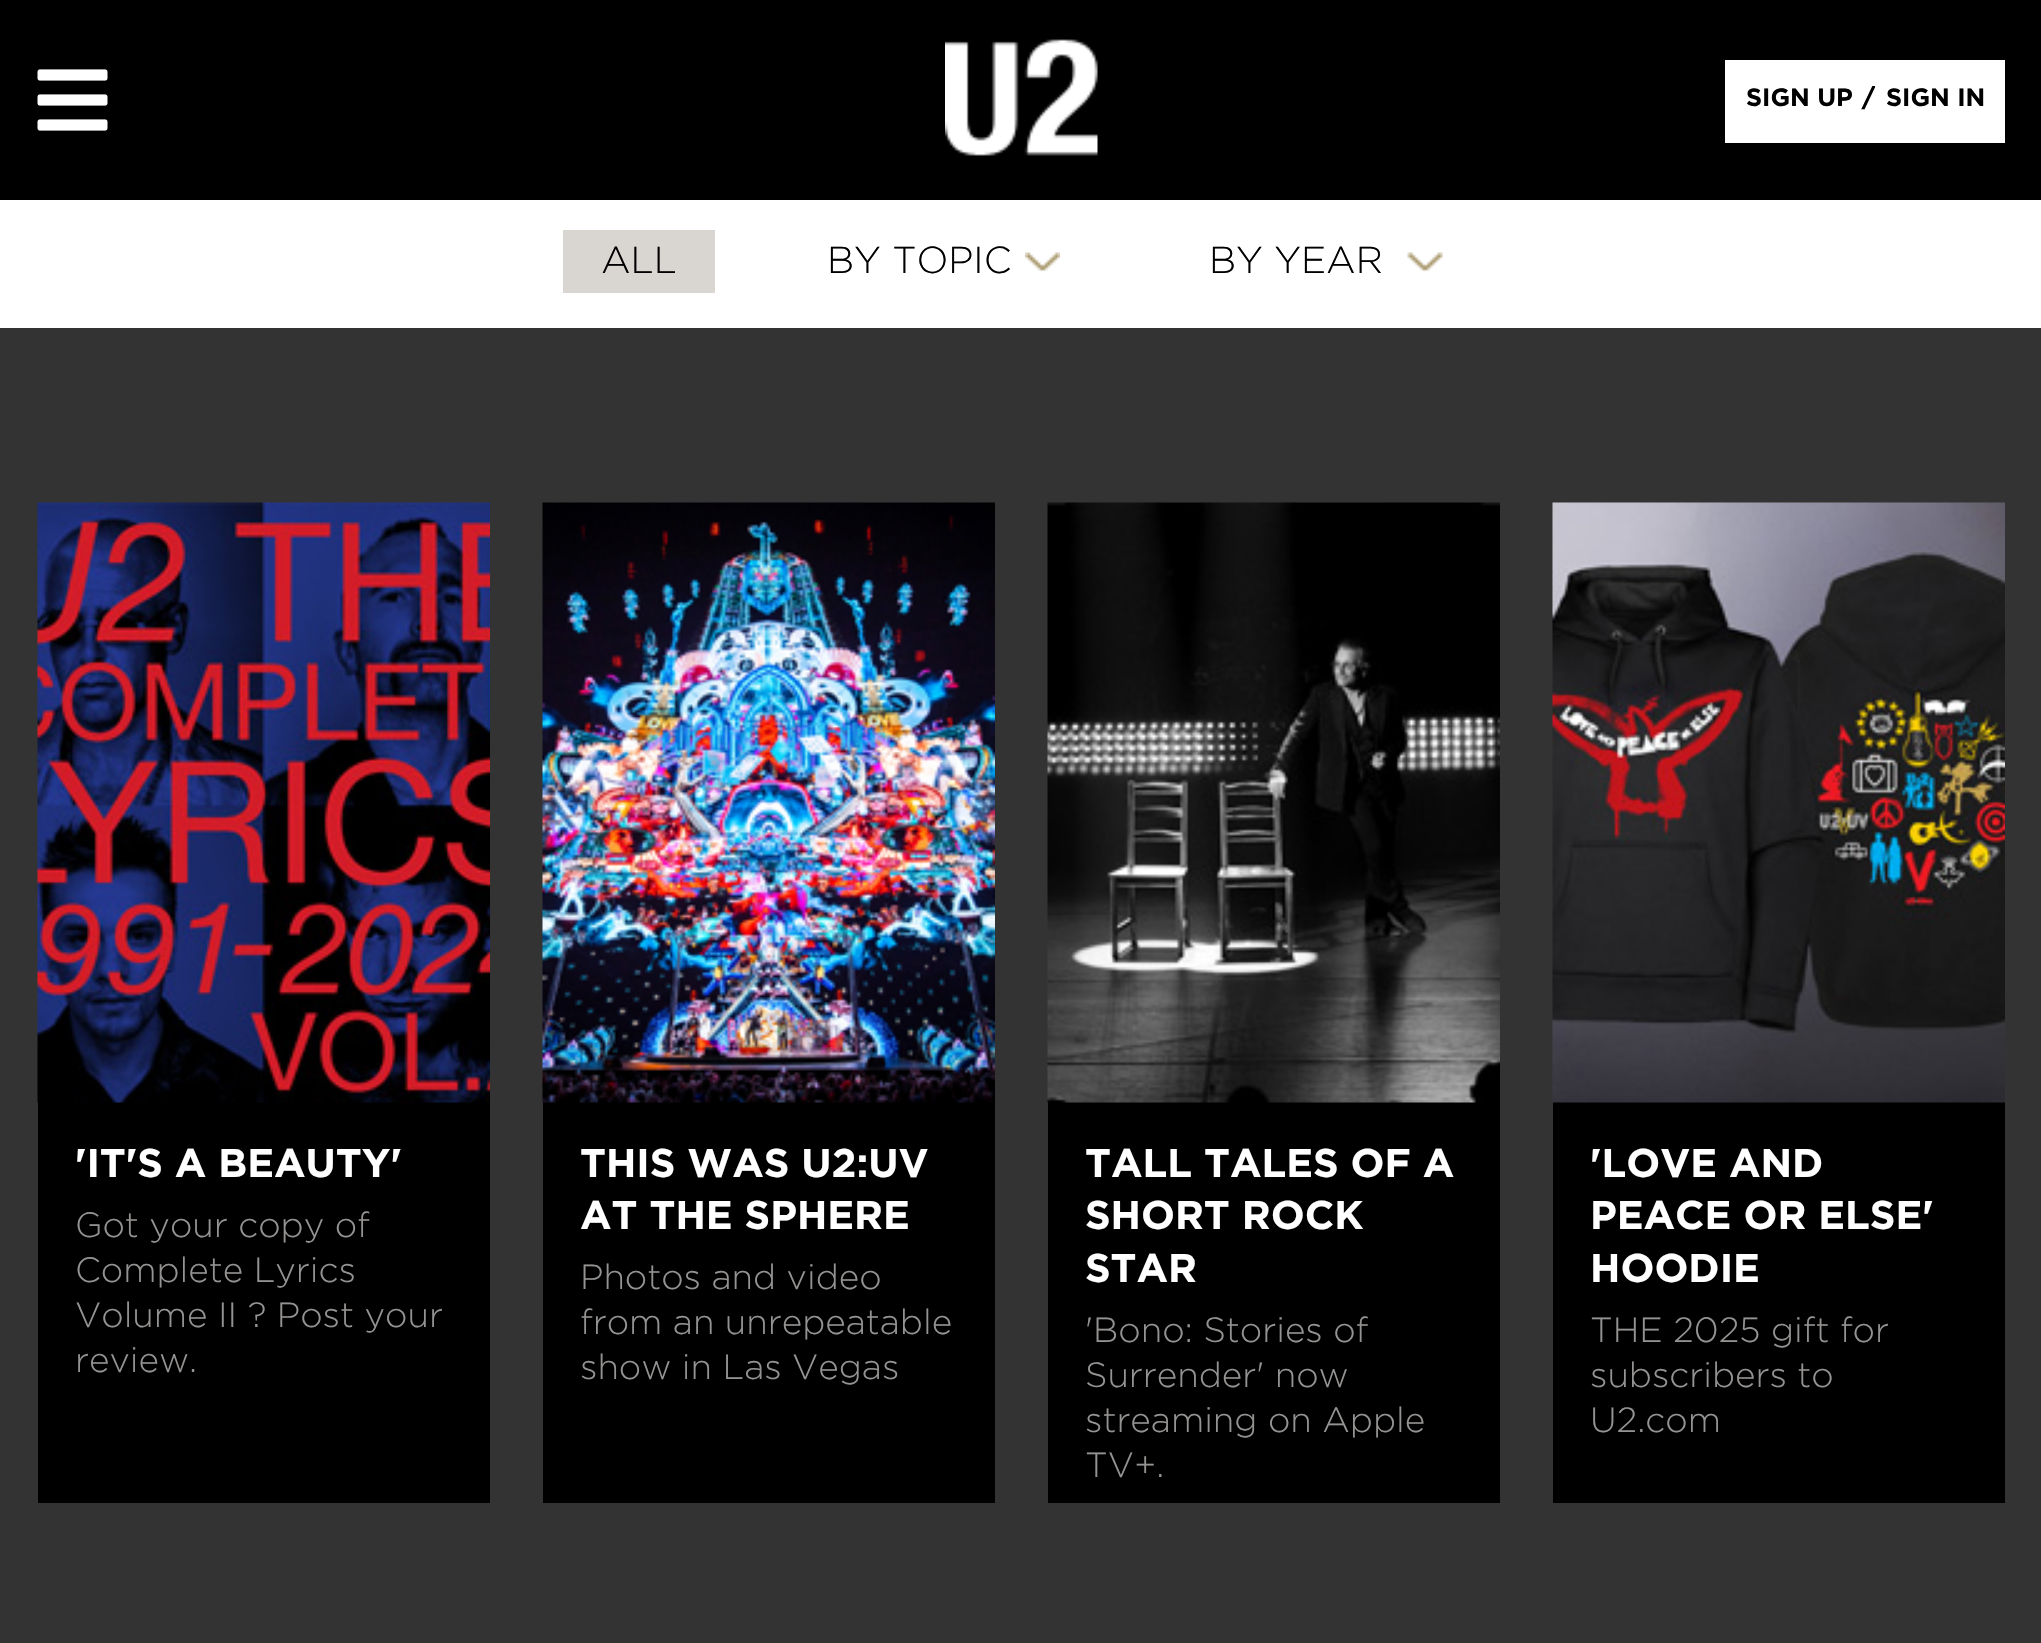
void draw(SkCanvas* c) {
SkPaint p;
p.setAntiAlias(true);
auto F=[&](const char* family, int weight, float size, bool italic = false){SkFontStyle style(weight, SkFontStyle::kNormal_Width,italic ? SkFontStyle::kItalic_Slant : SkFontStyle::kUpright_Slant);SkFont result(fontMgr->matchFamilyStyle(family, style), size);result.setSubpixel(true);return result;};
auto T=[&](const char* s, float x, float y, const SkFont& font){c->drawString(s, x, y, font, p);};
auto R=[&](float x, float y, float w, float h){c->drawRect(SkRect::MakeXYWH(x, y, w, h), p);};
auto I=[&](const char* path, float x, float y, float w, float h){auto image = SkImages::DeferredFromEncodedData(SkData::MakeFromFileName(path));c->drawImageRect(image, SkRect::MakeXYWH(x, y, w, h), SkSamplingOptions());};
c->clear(0xffffffff);
p.setColor(0xff000000);
R(0,0,2041,200);
I("1.png",37,69,71,62);
I("2.png",945,39,153,117);
p.setColor(0xffffffff);
R(1725,60,280,83);
auto f1 = F("Gotham",700,25);
p.setColor(0xff000000);
T("SIGN UP",1746,106,f1);
T("/",1862,106,f1);
p.setColor(0xffffffff);
R(1875,86,1,2);
p.setColor(0xff000000);
T("SIGN IN",1886,106,f1);
p.setColor(0xffd9d5d0);
R(563,230,152,63);
auto f2 = F("Gotham",300,37.5);
p.setColor(0xff000000);
T("ALL",601,273,f2);
T("BY TOPIC",827,273,f2);
I("3.png",1025,252,35,20);
T("BY YEAR",1209,273,f2);
I("4.png",1407,252,36,20);
p.setColor(0xff333333);
R(0,328,2041,1315);
p.setColor(0xff000000);
R(38,1102,452,401);
I("5.png",37,502,453,601);
auto f3 = F("Gotham",700,40);
p.setColor(0xffffffff);
T("'IT'S A BEAUTY'",75,1177,f3);
auto f4 = F("Gotham",300,35);
p.setColor(0xff959391);
T("Got your copy of",75,1237,f4);
T("Complete Lyrics",75,1282,f4);
T("Volume II ? Post your",75,1327,f4);
T("review.",75,1372,f4);
p.setColor(0xff000000);
R(543,1102,452,401);
I("6.png",542,502,453,601);
p.setColor(0xffffffff);
T("THIS WAS U2:UV",580,1177,f3);
T("AT THE SPHERE",580,1229,f3);
p.setColor(0xff959391);
T("Photos and video",580,1289,f4);
T("from an unrepeatable",580,1334,f4);
T("show in Las Vegas",580,1379,f4);
p.setColor(0xff000000);
R(1048,1102,452,401);
I("7.png",1047,502,453,601);
p.setColor(0xffffffff);
T("TALL TALES OF A",1085,1177,f3);
T("SHORT ROCK",1085,1229,f3);
T("STAR",1085,1282,f3);
p.setColor(0xff959391);
T("'Bono: Stories of",1085,1342,f4);
T("Surrender' now",1085,1387,f4);
T("streaming on Apple",1085,1432,f4);
T("TV+.",1085,1477,f4);
p.setColor(0xff000000);
R(1553,1102,452,401);
I("8.png",1552,502,453,601);
p.setColor(0xffffffff);
T("'LOVE AND",1590,1177,f3);
T("PEACE OR ELSE'",1590,1229,f3);
T("HOODIE",1590,1282,f3);
p.setColor(0xff959391);
T("THE 2025 gift for",1590,1342,f4);
T("subscribers to",1590,1387,f4);
T("U2.com",1590,1432,f4);
}
